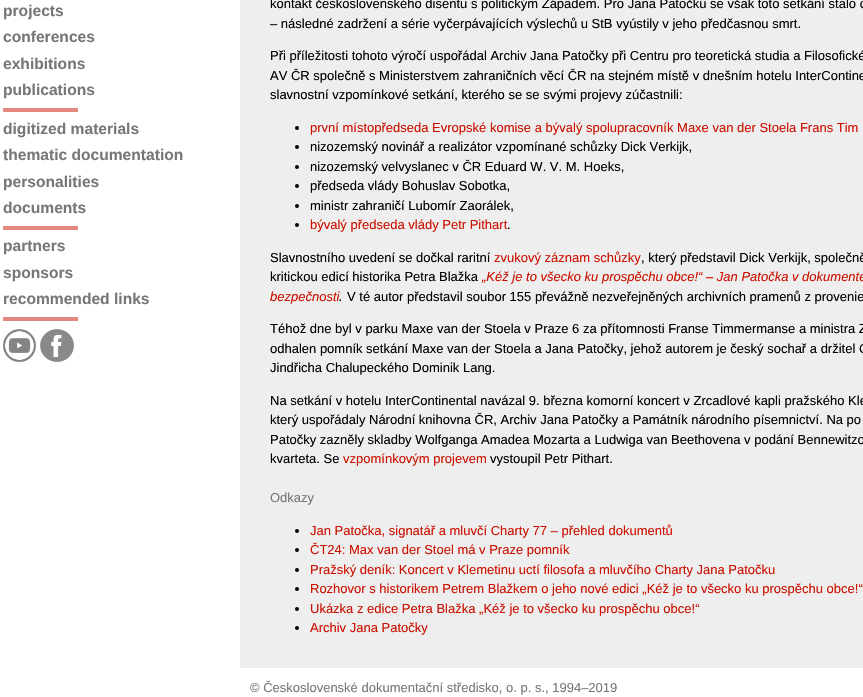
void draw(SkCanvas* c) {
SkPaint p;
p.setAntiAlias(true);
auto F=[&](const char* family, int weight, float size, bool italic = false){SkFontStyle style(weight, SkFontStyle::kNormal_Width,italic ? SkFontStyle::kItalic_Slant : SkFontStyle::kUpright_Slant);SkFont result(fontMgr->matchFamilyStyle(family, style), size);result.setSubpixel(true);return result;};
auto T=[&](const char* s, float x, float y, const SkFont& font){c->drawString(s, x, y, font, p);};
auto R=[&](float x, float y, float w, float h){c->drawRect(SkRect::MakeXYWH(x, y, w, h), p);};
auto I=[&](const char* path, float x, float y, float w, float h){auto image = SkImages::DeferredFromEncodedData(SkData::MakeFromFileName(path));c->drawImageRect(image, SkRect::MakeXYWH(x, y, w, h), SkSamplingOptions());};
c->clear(0xffffffff);
auto f1 = F("Liberation Sans",700,15.6);
p.setColor(0xff777777);
T("projects",3,16,f1);
T("conferences",3,42,f1);
T("exhibitions",3,69,f1);
T("publications",3,95,f1);
p.setColor(0xffe5887f);
R(3,108,75,4);
p.setColor(0xff777777);
T("digitized materials",3,134,f1);
T("thematic documentation",3,160,f1);
T("personalities",3,187,f1);
T("documents",3,213,f1);
p.setColor(0xffe5887f);
R(3,226,75,4);
p.setColor(0xff777777);
T("partners",3,251,f1);
T("sponsors",3,278,f1);
T("recommended links",3,304,f1);
p.setColor(0xffe5887f);
R(3,317,75,4);
I("1.png",3,329,33,33);
I("2.png",40,329,34,33);
p.setColor(0xffeeeeee);
R(240,0,623,668);
auto f2 = F("Liberation Sans",400,13);
p.setColor(0xff000000);
T("kontakt československého disentu s politickým Západem. Pro Jana Patočku se však toto setkání stalo o",270,8,f2);
T("– následné zadržení a série vyčerpávajících výslechů u StB vyústily v jeho předčasnou smrt.",270,28,f2);
T("Při příležitosti tohoto výročí uspořádal Archiv Jana Patočky při Centru pro teoretická studia a Filosofické",270,60,f2);
T("AV ČR společně s Ministerstvem zahraničních věcí ČR na stejném místě v dnešním hotelu InterContine",270,80,f2);
T("slavnostní vzpomínkové setkání, kterého se se svými projevy zúčastnili:",270,99,f2);
c->drawCircle(297,128,2,p);
p.setColor(0xffcc1100);
T("první místopředseda Evropské komise a bývalý spolupracovník Maxe van der Stoela Frans Tim",310,132,f2);
p.setColor(0xff000000);
c->drawCircle(297,147,2,p);
T("nizozemský novinář a realizátor vzpomínané schůzky Dick Verkijk,",310,151,f2);
c->drawCircle(297,167,2,p);
T("nizozemský velvyslanec v ČR Eduard W. V. M. Hoeks,",310,171,f2);
c->drawCircle(297,186,2,p);
T("předseda vlády Bohuslav Sobotka,",310,190,f2);
c->drawCircle(297,206,2,p);
T("ministr zahraničí Lubomír Zaorálek,",310,210,f2);
c->drawCircle(297,225,2,p);
p.setColor(0xffcc1100);
T("bývalý předseda vlády Petr Pithart",310,229,f2);
p.setColor(0xff000000);
T(".",507,229,f2);
T("Slavnostního uvedení se dočkal raritní",270,262,f2);
p.setColor(0xffcc1100);
T("zvukový záznam schůzky",494,262,f2);
p.setColor(0xff000000);
T(", který představil Dick Verkijk, společně",641,262,f2);
T("kritickou edicí historika Petra Blažka",270,281,f2);
auto f3 = F("Liberation Sans",400,13,true);
p.setColor(0xffcc1100);
T("„Kéž je to všecko ku prospěchu obce!“ – Jan Patočka v dokumente",482,281,f3);
T("bezpečnosti",270,301,f3);
p.setColor(0xff000000);
T(".",339,301,f3);
T("V té autor představil soubor 155 převážně nezveřejněných archivních pramenů z provenie",347,301,f2);
T("Téhož dne byl v parku Maxe van der Stoela v Praze 6 za přítomnosti Franse Timmermanse a ministra Z",270,333,f2);
T("odhalen pomník setkání Maxe van der Stoela a Jana Patočky, jehož autorem je český sochař a držitel C",270,353,f2);
T("Jindřicha Chalupeckého Dominik Lang.",270,372,f2);
T("Na setkání v hotelu InterContinental navázal 9. března komorní koncert v Zrcadlové kapli pražského Kle",270,405,f2);
T("který uspořádaly Národní knihovna ČR, Archiv Jana Patočky a Památník národního písemnictví. Na po",270,424,f2);
T("Patočky zazněly skladby Wolfganga Amadea Mozarta a Ludwiga van Beethovena v podání Bennewitzo",270,444,f2);
T("kvarteta. Se",270,463,f2);
p.setColor(0xffcc1100);
T("vzpomínkovým projevem",343,463,f2);
p.setColor(0xff000000);
T("vystoupil Petr Pithart.",490,463,f2);
p.setColor(0xff777777);
T("Odkazy",270,502,f2);
p.setColor(0xff000000);
c->drawCircle(297,531,2,p);
p.setColor(0xffcc1100);
T("Jan Patočka, signatář a mluvčí Charty 77 – přehled dokumentů",310,535,f2);
p.setColor(0xff000000);
c->drawCircle(297,550,2,p);
p.setColor(0xffcc1100);
T("ČT24: Max van der Stoel má v Praze pomník",310,554,f2);
p.setColor(0xff000000);
c->drawCircle(297,570,2,p);
p.setColor(0xffcc1100);
T("Pražský deník: Koncert v Klemetinu uctí filosofa a mluvčího Charty Jana Patočku",310,574,f2);
p.setColor(0xff000000);
c->drawCircle(297,589,2,p);
p.setColor(0xffcc1100);
T("Rozhovor s historikem Petrem Blažkem o jeho nové edici „Kéž je to všecko ku prospěchu obce!“",310,593,f2);
p.setColor(0xff000000);
c->drawCircle(297,609,2,p);
p.setColor(0xffcc1100);
T("Ukázka z edice Petra Blažka „Kéž je to všecko ku prospěchu obce!“",310,613,f2);
p.setColor(0xff000000);
c->drawCircle(297,628,2,p);
p.setColor(0xffcc1100);
T("Archiv Jana Patočky",310,632,f2);
p.setColor(0xff777777);
T("© Československé dokumentační středisko, o. p. s., 1994–2019",250,692,f2);
}
